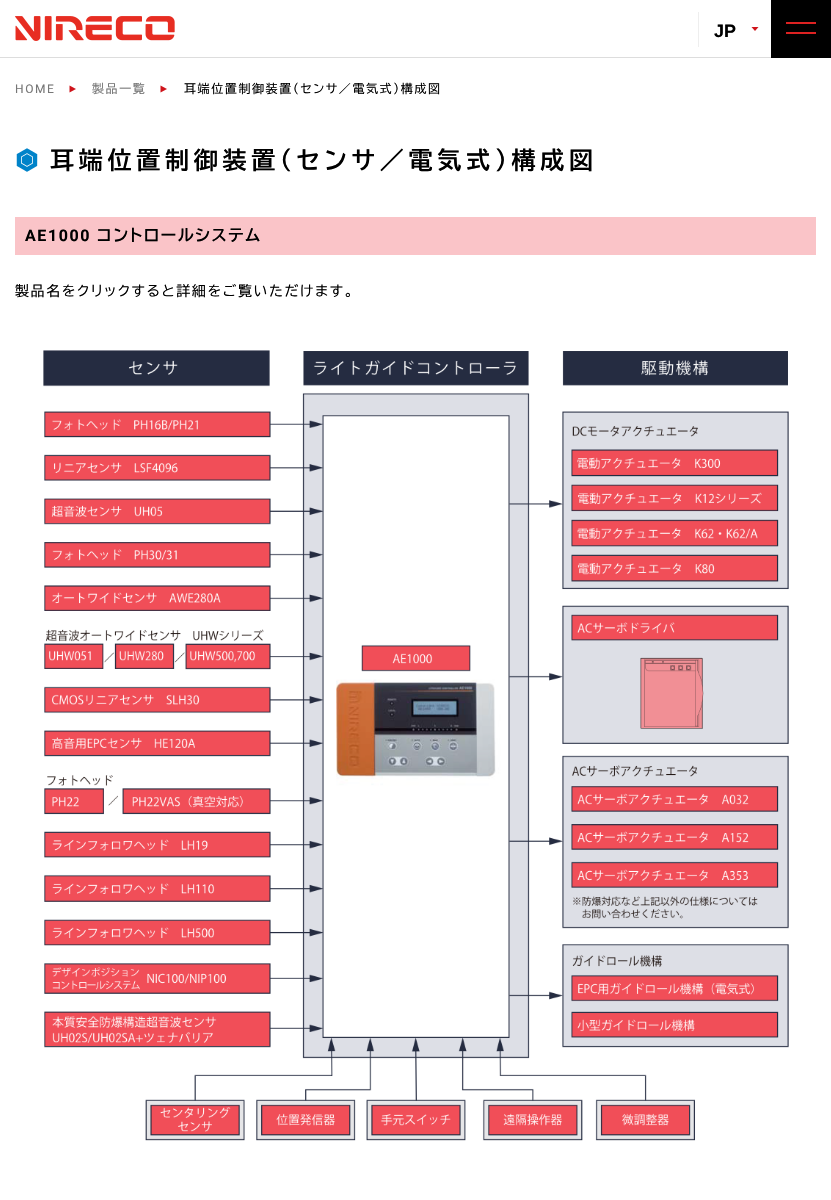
void draw(SkCanvas* c) {
SkPaint p;
p.setAntiAlias(true);
auto F=[&](const char* family, int weight, float size, bool italic = false){SkFontStyle style(weight, SkFontStyle::kNormal_Width,italic ? SkFontStyle::kItalic_Slant : SkFontStyle::kUpright_Slant);SkFont result(fontMgr->matchFamilyStyle(family, style), size);result.setSubpixel(true);return result;};
auto T=[&](const char* s, float x, float y, const SkFont& font){c->drawString(s, x, y, font, p);};
auto L=[&](const char* s, float x, float y, const SkFont& font, const SkPaint& ink, float letter, float word){std::vector<SkGlyphID> glyphs(font.countText(s, strlen(s), SkTextEncoding::kUTF8));std::vector<float> xs(glyphs.size());font.textToGlyphs(s, strlen(s), SkTextEncoding::kUTF8, glyphs);font.getXPos(glyphs, xs, x);float extra = 0;for (size_t i = 0; i < glyphs.size(); i++) {xs[i] += extra;extra += letter + word * (glyphs[i] == font.unicharToGlyph(' '));}c->drawTextBlob(SkTextBlob::MakeFromPosHGlyphs(glyphs, xs, y, font), 0, 0, ink);};
auto R=[&](float x, float y, float w, float h){c->drawRect(SkRect::MakeXYWH(x, y, w, h), p);};
auto I=[&](const char* path, float x, float y, float w, float h){auto image = SkImages::DeferredFromEncodedData(SkData::MakeFromFileName(path));c->drawImageRect(image, SkRect::MakeXYWH(x, y, w, h), SkSamplingOptions());};
auto P=[&](const char* data, bool evenOdd = false){SkPath result = *SkParsePath::FromSVGString(data);if (evenOdd) result.setFillType(SkPathFillType::kEvenOdd);return result;};
c->clear(0xffffffff);
p.setColor(0xffdddddd);
R(0,57,771,1);
I("1.png",15,16,160,25);
p.setColor(0xffeeeeee);
R(698,12,1,35);
p.setColor(0xffcf141b);
c->drawPath(P("M751.5 27h7l-3.5 4z"),p);
auto f1 = F("Liberation Sans",700,18);
p.setColor(0xff000000);
T("JP",714,37,f1);
R(771,0,60,58);
p.setColor(0xffdd2222);
R(786,22,30,2);
R(786,32,30,2);
auto f2 = F("Roboto",400,12);
p.setColor(0xff777777);
L("HOME",15,93,f2,p,1.6,0);
p.setColor(0xffcf141b);
c->drawPath(P("M76 89l-6.5-3.5v7z"),p);
auto f3 = F("BIZ UDPGothic",400,12);
p.setColor(0xff777777);
L("製品一覧",92,93,f3,p,1.6,0);
p.setColor(0xffcf141b);
c->drawPath(P("M167 89l-6.5-3.5v7z"),p);
p.setColor(0xff000000);
L("耳端位置制御装置（センサ／電気式）構成図",184,93,f3,p,1.6,0);
I("2.png",16,148,22,24);
auto f4 = F("BIZ UDPGothic",700,24);
L("耳端位置制御装置（センサ／電気式）構成図",50,169,f4,p,4.75,0);
p.setColor(0xfffac4c8);
R(15,217,801,38);
auto f5 = F("Roboto",700,16);
p.setColor(0xff000000);
L("AE1000",25,241,f5,p,1.6,0);
auto f6 = F("BIZ UDPGothic",700,16);
L("コントロールシステム",97,241,f6,p,1.6,0);
auto f7 = F("BIZ UDPGothic",400,14);
L("製品名をクリックすると詳細をご覧いただけます。",15,296,f7,p,1.6,0);
I("3.png",43,350,746,791);
}
